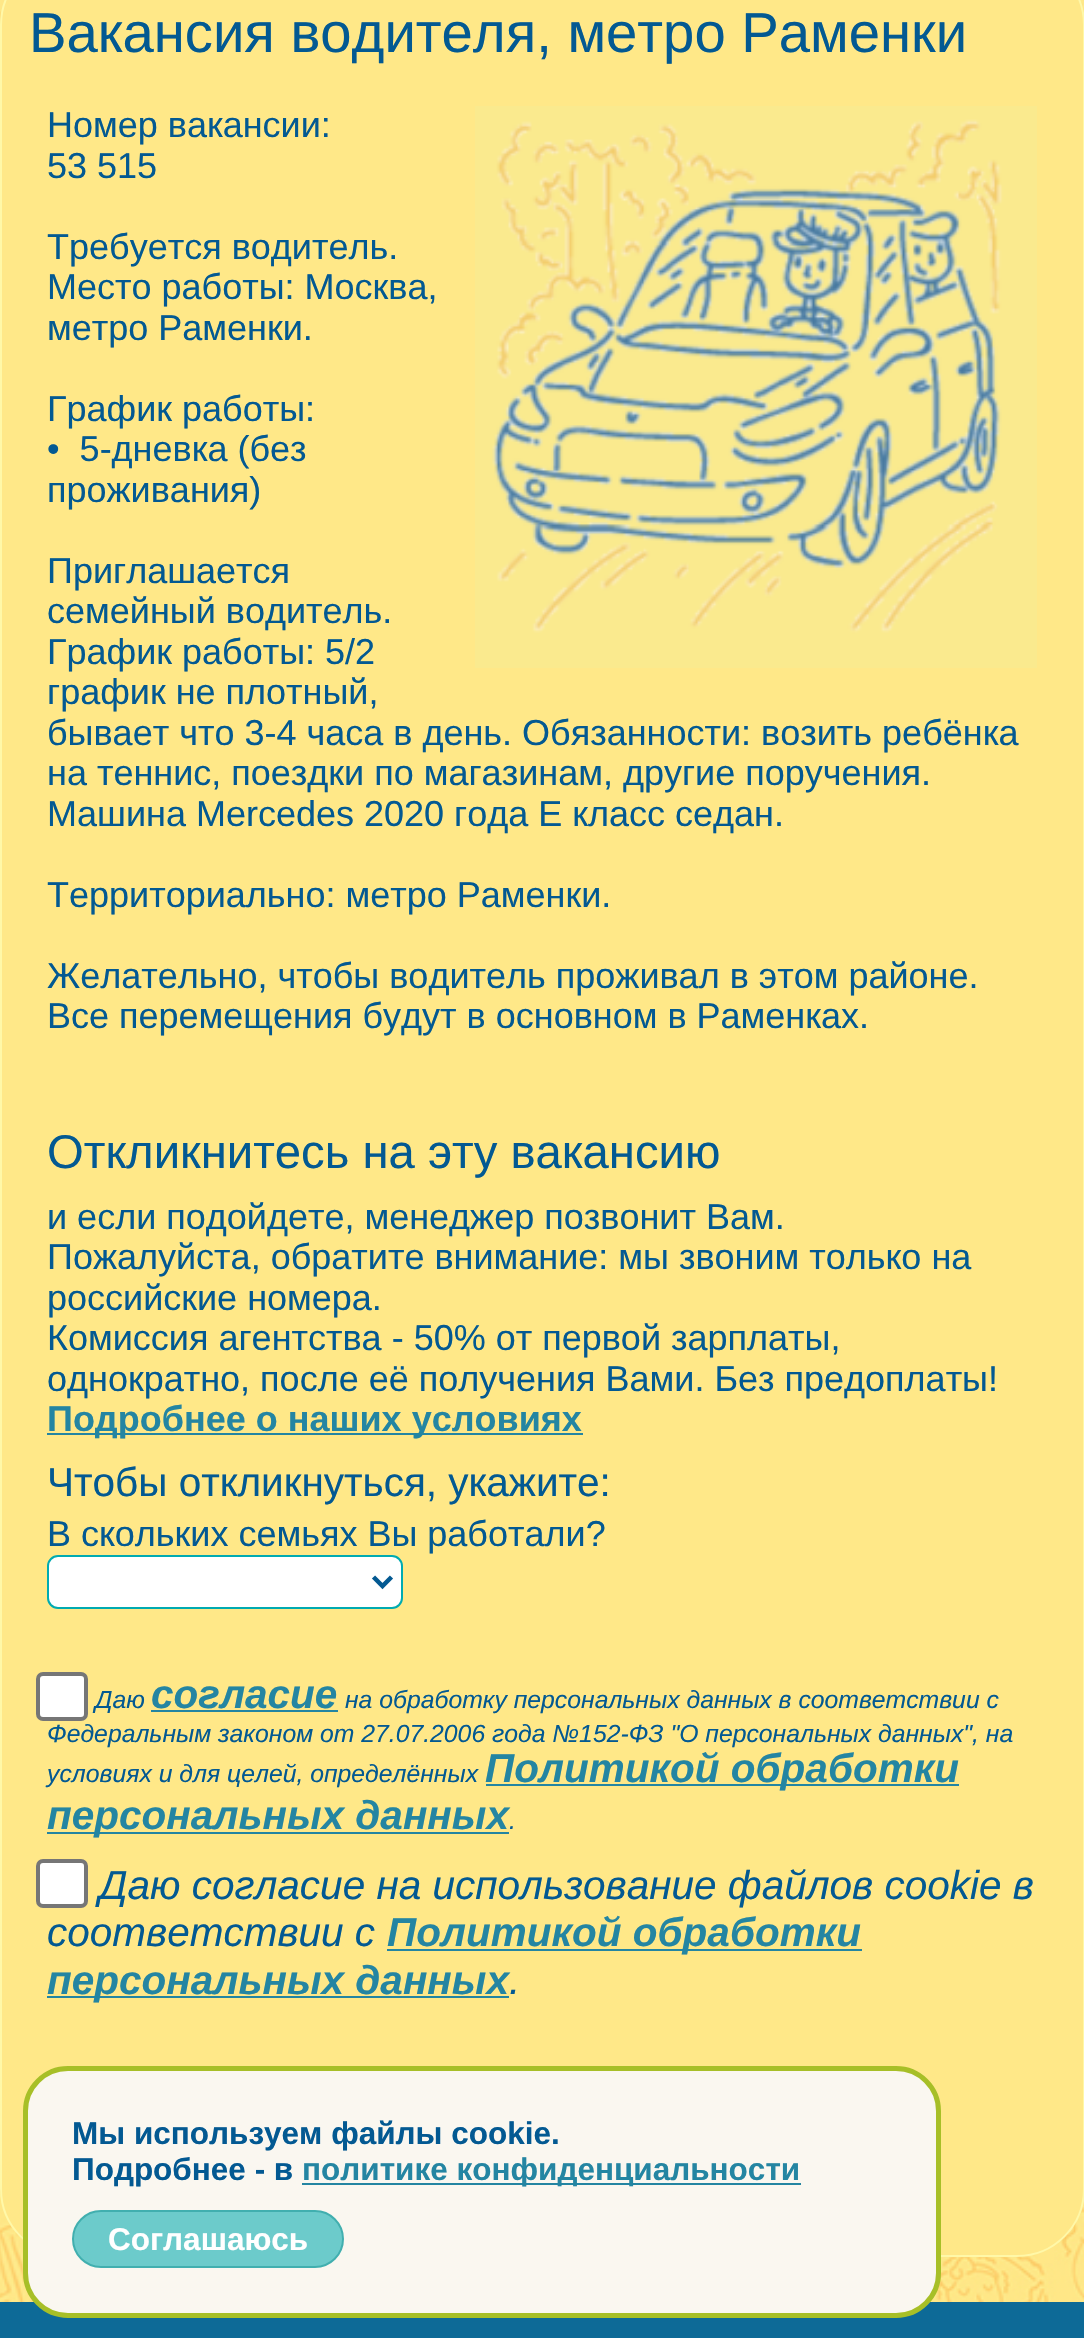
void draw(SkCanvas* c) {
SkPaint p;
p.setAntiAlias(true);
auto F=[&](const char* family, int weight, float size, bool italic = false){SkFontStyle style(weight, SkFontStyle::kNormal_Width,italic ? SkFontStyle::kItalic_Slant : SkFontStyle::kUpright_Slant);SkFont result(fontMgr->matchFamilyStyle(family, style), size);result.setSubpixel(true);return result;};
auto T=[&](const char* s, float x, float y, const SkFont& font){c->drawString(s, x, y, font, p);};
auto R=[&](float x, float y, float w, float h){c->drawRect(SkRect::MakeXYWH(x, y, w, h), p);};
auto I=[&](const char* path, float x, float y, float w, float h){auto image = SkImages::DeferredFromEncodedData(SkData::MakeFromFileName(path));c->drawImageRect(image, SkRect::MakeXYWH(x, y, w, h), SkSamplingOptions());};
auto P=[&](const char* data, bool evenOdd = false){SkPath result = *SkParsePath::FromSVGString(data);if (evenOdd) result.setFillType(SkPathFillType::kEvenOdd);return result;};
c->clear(0xffffffff);
I("1.png",0,0,1084,2302);
p.setColor(0xffffe888);
c->drawRoundRect(SkRect::MakeXYWH(1,-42,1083,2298),67,67,p);
p.setStroke(true);
p.setStrokeWidth(2);
p.setColor(0xfffff8a8);
c->drawRoundRect(SkRect::MakeXYWH(1,-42,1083,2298),67,67,p);
auto f1 = F("Liberation Sans",400,56.25);
p.setStroke(false);
p.setColor(0xff035992);
T("Вакансия водителя, метро Раменки",29,52,f1);
auto f2 = F("Liberation Sans",400,36);
T("Номер вакансии:",47,137,f2);
I("2.png",475,106,562,562);
T("53 515",47,178,f2);
T("Требуется водитель.",47,259,f2);
T("Место работы: Москва,",47,299,f2);
T("метро Раменки.",47,340,f2);
T("График работы:",47,421,f2);
T("•  5-дневка (без",47,461,f2);
T("проживания)",47,502,f2);
T("Приглашается",47,583,f2);
T("семейный водитель.",47,623,f2);
T("График работы: 5/2",47,664,f2);
T("график не плотный,",47,704,f2);
T("бывает что 3-4 часа в день. Обязанности: возить ребёнка",47,745,f2);
T("на теннис, поездки по магазинам, другие поручения.",47,785,f2);
T("Машина Mercedes 2020 года Е класс седан.",47,826,f2);
T("Территориально: метро Раменки.",47,907,f2);
T("Желательно, чтобы водитель проживал в этом районе.",47,988,f2);
T("Все перемещения будут в основном в Раменках.",47,1028,f2);
auto f3 = F("Liberation Sans",400,47.25);
T("Откликнитесь на эту вакансию",47,1168,f3);
T("и если подойдете, менеджер позвонит Вам.",47,1229,f2);
T("Пожалуйста, обратите внимание: мы звоним только на",47,1269,f2);
T("российские номера.",47,1310,f2);
T("Комиссия агентства - 50% от первой зарплаты,",47,1350,f2);
T("однократно, после её получения Вами. Без предоплаты!",47,1391,f2);
p.setColor(0xff2485a2);
R(47,1433,536,2);
auto f4 = F("Liberation Sans",700,36);
T("Подробнее о наших условиях",47,1431,f4);
auto f5 = F("Liberation Sans",400,40.5);
p.setColor(0xff035992);
T("Чтобы откликнуться, укажите:",47,1496,f5);
T("В скольких семьях Вы работали?",47,1546,f2);
p.setColor(0xffffffff);
c->drawRoundRect(SkRect::MakeXYWH(48,1556,354,52),10,10,p);
p.setStroke(true);
p.setColor(0xff00abb1);
c->drawRoundRect(SkRect::MakeXYWH(48,1556,354,52),10,10,p);
p.setStrokeWidth(4.5);
p.setColor(0xff035992);
c->drawPath(P("M373.5 1577l9 9l9-9"),p);
p.setStroke(false);
p.setColor(0xffffffff);
c->drawRoundRect(SkRect::MakeXYWH(38,1674,48,45),5,5,p);
p.setStroke(true);
p.setStrokeWidth(4);
p.setColor(0xff767676);
c->drawRoundRect(SkRect::MakeXYWH(38,1674,48,45),5,5,p);
auto f6 = F("Liberation Sans",400,24.75,true);
p.setStroke(false);
p.setColor(0xff035992);
T("Даю",95,1708,f6);
auto f7 = F("Liberation Sans",700,40.5,true);
p.setColor(0xff2485a2);
T("согласие",151,1708,f7);
R(151,1710,187,2);
p.setColor(0xff035992);
T("на обработку персональных данных в соответствии с",345,1708,f6);
T("Федеральным законом от 27.07.2006 года №152-ФЗ \"О персональных данных\", на",47,1742,f6);
T("условиях и для целей, определённых",47,1782,f6);
p.setColor(0xff2485a2);
R(486,1784,473,2);
T("Политикой обработки",485,1782,f7);
R(47,1832,462,2);
T("персональных данных",47,1829,f7);
p.setColor(0xff035992);
T(".",509,1829,f6);
p.setColor(0xffffffff);
c->drawRoundRect(SkRect::MakeXYWH(38,1861,48,45),5,5,p);
p.setStroke(true);
p.setColor(0xff767676);
c->drawRoundRect(SkRect::MakeXYWH(38,1861,48,45),5,5,p);
auto f8 = F("Liberation Sans",400,40.5,true);
p.setStroke(false);
p.setColor(0xff035992);
T("Даю согласие на использование файлов cookie в",99,1899,f8);
T("соответствии с",47,1946,f8);
p.setColor(0xff2485a2);
R(387,1949,475,2);
T("Политикой обработки",387,1946,f7);
R(47,1996,462,2);
T("персональных данных",47,1994,f7);
p.setColor(0xff035992);
T(".",509,1994,f8);
p.setColor(0xff0d6a97);
R(0,2302,1084,36);
p.setColor(0xfffaf7f0);
c->drawRoundRect(SkRect::MakeXYWH(25.5,2068.5,913,247),42.5,42.5,p);
p.setStroke(true);
p.setStrokeWidth(5);
p.setColor(0xffa7bf27);
c->drawRoundRect(SkRect::MakeXYWH(25.5,2068.5,913,247),42.5,42.5,p);
auto f9 = F("Liberation Sans",700,31.5);
p.setStroke(false);
p.setColor(0xff035992);
T("Мы используем файлы cookie.",72,2144,f9);
T("Подробнее - в",72,2180,f9);
p.setColor(0xff2485a2);
R(302,2183,499,2);
T("политике конфиденциальности",302,2180,f9);
p.setColor(0xff6ccbcb);
c->drawRoundRect(SkRect::MakeXYWH(73,2211,270,56),28,28,p);
p.setStroke(true);
p.setStrokeWidth(2);
p.setColor(0xff41afaf);
c->drawRoundRect(SkRect::MakeXYWH(73,2211,270,56),28,28,p);
p.setStroke(false);
p.setColor(0xffffffff);
T("Соглашаюсь",108,2250,f9);
}
